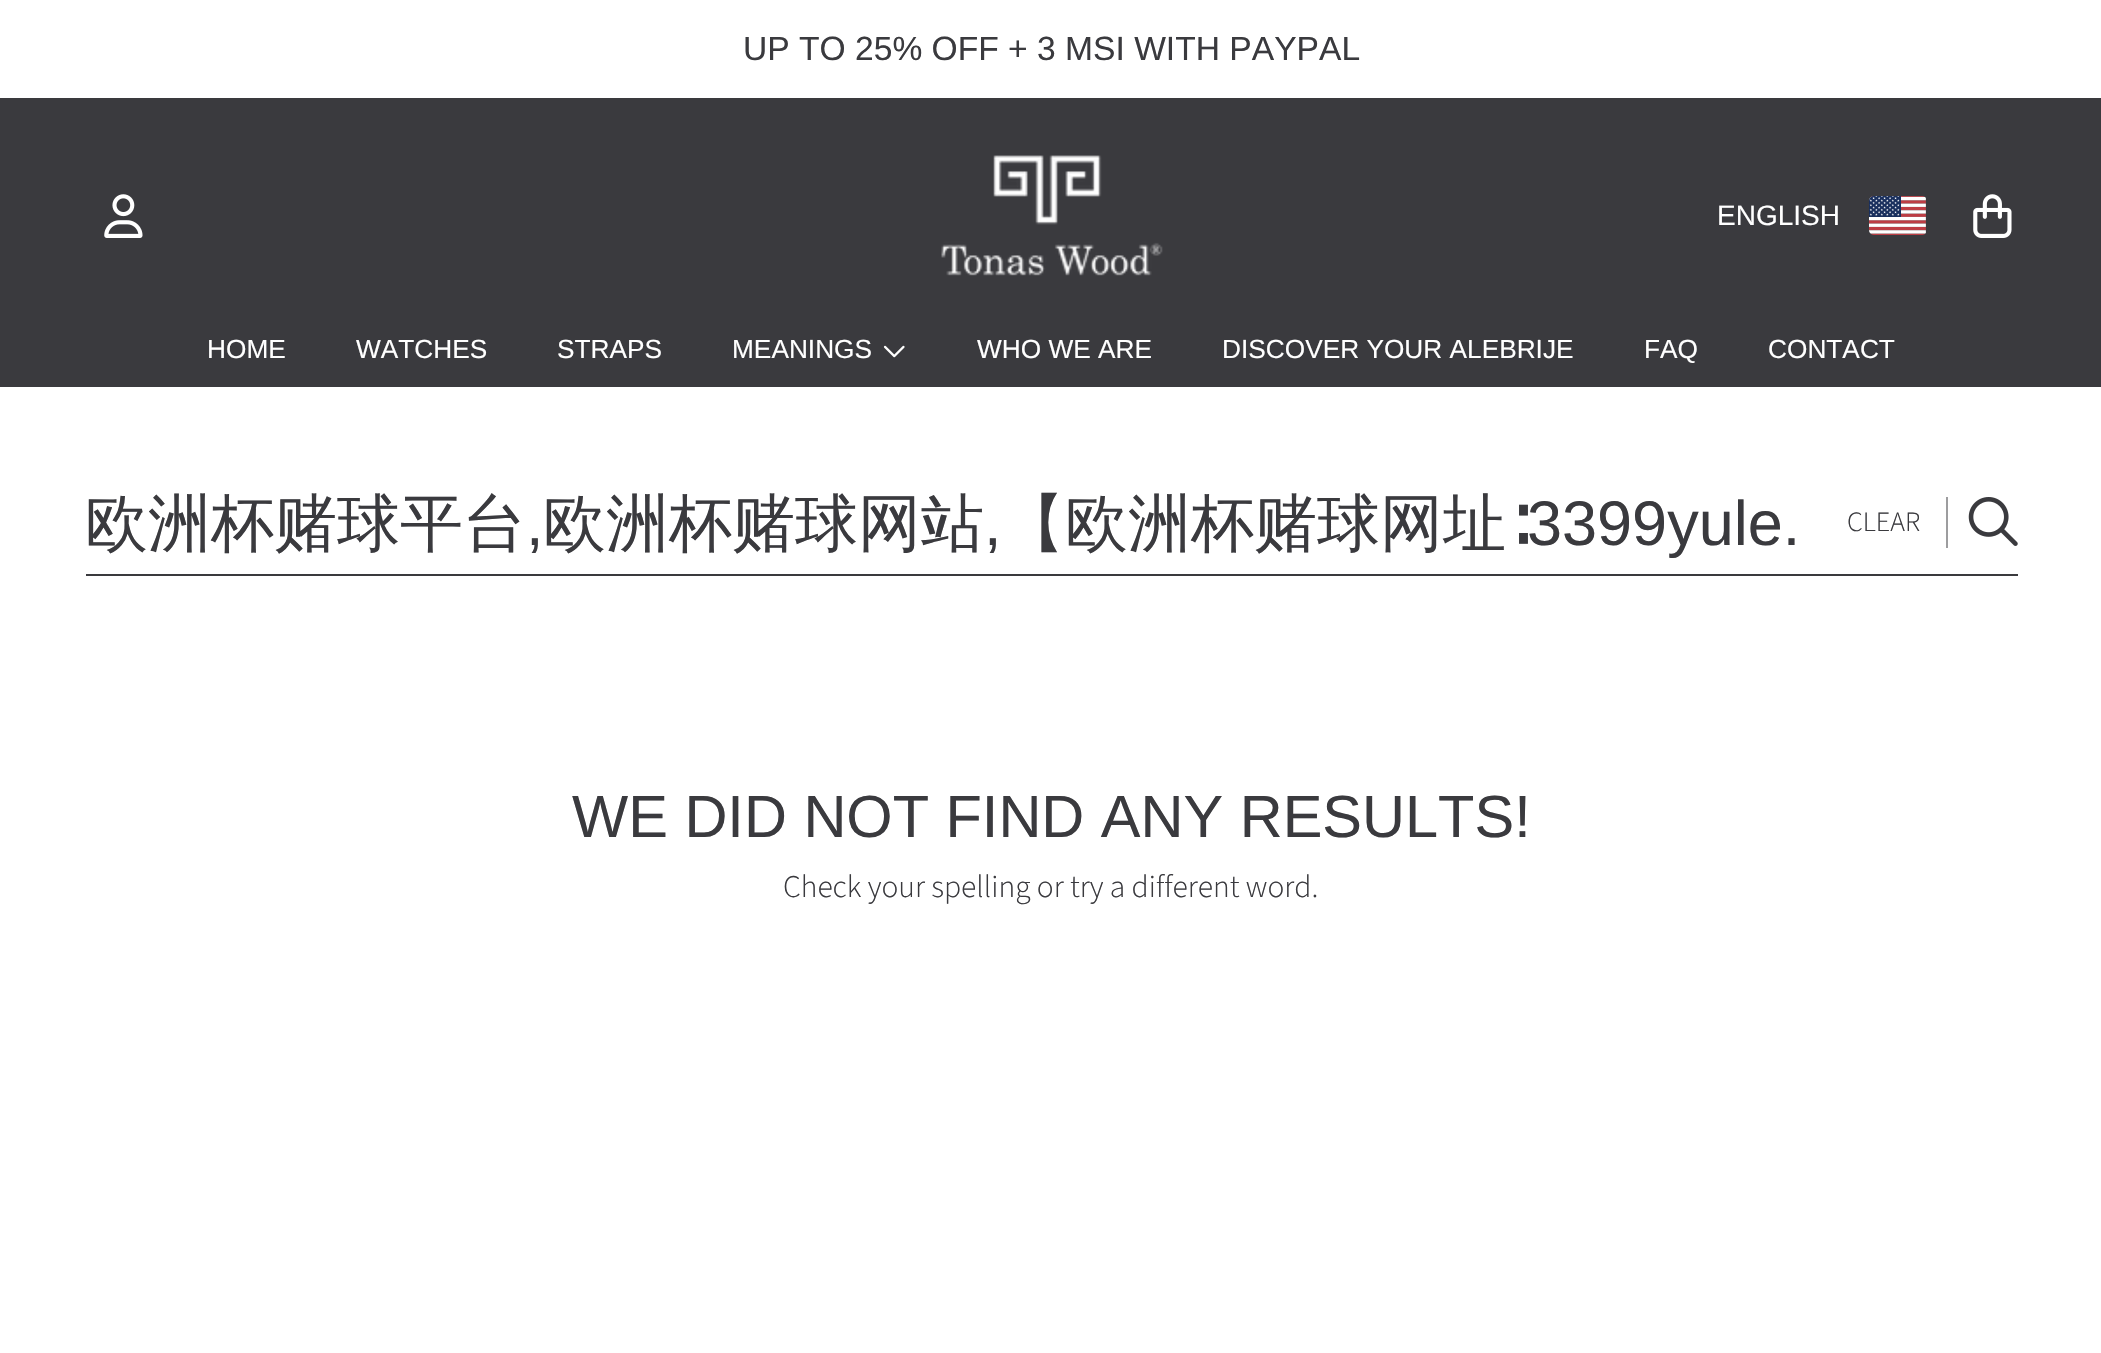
void draw(SkCanvas* c) {
SkPaint p;
p.setAntiAlias(true);
auto F=[&](const char* family, int weight, float size, bool italic = false){SkFontStyle style(weight, SkFontStyle::kNormal_Width,italic ? SkFontStyle::kItalic_Slant : SkFontStyle::kUpright_Slant);SkFont result(fontMgr->matchFamilyStyle(family, style), size);result.setSubpixel(true);return result;};
auto T=[&](const char* s, float x, float y, const SkFont& font){c->drawString(s, x, y, font, p);};
auto R=[&](float x, float y, float w, float h){c->drawRect(SkRect::MakeXYWH(x, y, w, h), p);};
auto I=[&](const char* path, float x, float y, float w, float h){auto image = SkImages::DeferredFromEncodedData(SkData::MakeFromFileName(path));c->drawImageRect(image, SkRect::MakeXYWH(x, y, w, h), SkSamplingOptions());};
c->clear(0xffffffff);
auto f1 = F("Arimo",400,33.6);
p.setColor(0xff3a3a3e);
T("UP TO 25% OFF + 3 MSI WITH PAYPAL",743,60,f1);
R(0,98,2101,289);
I("1.png",104,194,39,44);
I("2.png",941,155,222,121);
auto f2 = F("Arimo",400,28);
p.setColor(0xffffffff);
T("ENGLISH",1717,225,f2);
I("3.png",1869,196,57,39);
I("4.png",1973,194,39,44);
auto f3 = F("Arimo",400,26.25);
T("HOME",207,358,f3);
T("WATCHES",356,358,f3);
T("STRAPS",557,358,f3);
T("MEANINGS",732,358,f3);
I("5.png",883,345,22,13);
T("WHO WE ARE",977,358,f3);
T("DISCOVER YOUR ALEBRIJE",1222,358,f3);
T("FAQ",1644,358,f3);
T("CONTACT",1768,358,f3);
p.setColor(0xff3a3a3e);
R(86,574,1932,2);
auto f4 = F("WenQuanYi Zen Hei",500,63);
T("欧洲杯赌球平台",85,545,f4);
auto f5 = F("Arimo",400,63);
T(",",526,545,f5);
T("欧洲杯赌球网站",543,545,f4);
T(",",984,545,f5);
T("【欧洲杯赌球网址∶",1002,545,f4);
T("3399yule.",1527,545,f5);
auto f6 = F("Source Sans Pro",300,28);
T("CLEAR",1847,531,f6);
p.setColor(0xff9d9d9f);
R(1946,497,2,51);
I("6.png",1968,497,50,49);
auto f7 = F("Arimo",400,59.5);
p.setColor(0xff3a3a3e);
T("WE DID NOT FIND ANY RESULTS!",572,837,f7);
auto f8 = F("Source Sans Pro",300,31.5);
T("Check your spelling or try a different word.",783,897,f8);
}
